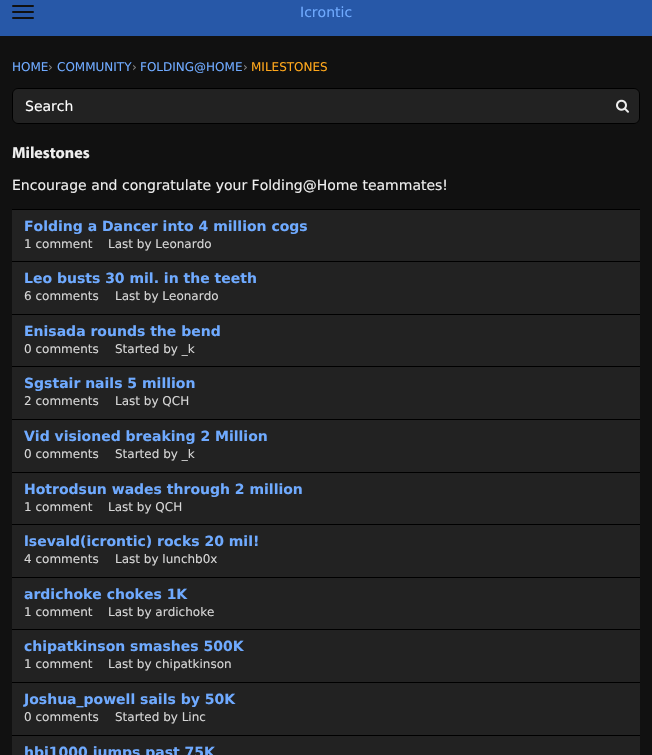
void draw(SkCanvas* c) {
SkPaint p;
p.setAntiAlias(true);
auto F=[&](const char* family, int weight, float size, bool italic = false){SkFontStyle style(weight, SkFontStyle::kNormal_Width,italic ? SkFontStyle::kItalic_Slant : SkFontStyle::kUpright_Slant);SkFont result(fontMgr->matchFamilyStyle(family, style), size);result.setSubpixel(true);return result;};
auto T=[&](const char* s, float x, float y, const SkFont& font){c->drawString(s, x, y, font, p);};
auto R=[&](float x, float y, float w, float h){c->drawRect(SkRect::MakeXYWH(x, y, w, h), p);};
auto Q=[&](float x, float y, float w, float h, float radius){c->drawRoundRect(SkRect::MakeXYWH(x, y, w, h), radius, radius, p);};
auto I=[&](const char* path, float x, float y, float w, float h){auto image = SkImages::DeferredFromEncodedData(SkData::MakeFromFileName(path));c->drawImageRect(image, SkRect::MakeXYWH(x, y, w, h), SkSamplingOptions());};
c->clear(0xff111111);
p.setColor(0xff2758a8);
R(0,0,652,36);
p.setColor(0xff111111);
Q(12,11,22,2,1);
Q(12,5,22,2,1);
Q(12,17,22,2,1);
auto f1 = F("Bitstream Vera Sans",400,14);
p.setColor(0xff6faaff);
T("Icrontic",300,17,f1);
auto f2 = F("Bitstream Vera Sans",400,12);
T("HOME",12,71,f2);
p.setColor(0xff808080);
T("›",48,71,f2);
p.setColor(0xff6faaff);
T("COMMUNITY",57,71,f2);
p.setColor(0xff808080);
T("›",132,71,f2);
p.setColor(0xff6faaff);
T("FOLDING@HOME",140,71,f2);
p.setColor(0xff808080);
T("›",243,71,f2);
p.setColor(0xffffa71b);
T("MILESTONES",251,71,f2);
p.setColor(0xff222222);
c->drawRoundRect(SkRect::MakeXYWH(12.5,88.5,627,35),5.5,5.5,p);
p.setStroke(true);
p.setStrokeWidth(1);
p.setColor(0xff000000);
c->drawRoundRect(SkRect::MakeXYWH(12.5,88.5,627,35),5.5,5.5,p);
p.setStroke(false);
p.setColor(0xffffffff);
T("Search",25,111,f1);
I("1.png",616,99,13,14);
auto f3 = F("Myriad",700,16);
p.setColor(0xffeeeeee);
T("Milestones",12,158,f3);
T("Encourage and congratulate your Folding@Home teammates!",12,190,f1);
p.setColor(0xff222222);
R(12,210,628,51);
p.setColor(0xff000000);
R(12,209,628,1);
auto f4 = F("Bitstream Vera Sans",700,14);
p.setColor(0xff6faaff);
T("Folding a Dancer into 4 million cogs",24,231,f4);
p.setColor(0xffd6d6d6);
T("1 comment",24,248,f2);
T("Last by Leonardo",108,248,f2);
p.setColor(0xff222222);
R(12,262,628,52);
p.setColor(0xff000000);
R(12,261,628,1);
p.setColor(0xff6faaff);
T("Leo busts 30 mil. in the teeth",24,283,f4);
p.setColor(0xffd6d6d6);
T("6 comments",24,300,f2);
T("Last by Leonardo",115,300,f2);
p.setColor(0xff222222);
R(12,315,628,51);
p.setColor(0xff000000);
R(12,314,628,1);
p.setColor(0xff6faaff);
T("Enisada rounds the bend",24,336,f4);
p.setColor(0xffd6d6d6);
T("0 comments",24,353,f2);
T("Started by _k",115,353,f2);
p.setColor(0xff222222);
R(12,367,628,52);
p.setColor(0xff000000);
R(12,366,628,1);
p.setColor(0xff6faaff);
T("Sgstair nails 5 million",24,388,f4);
p.setColor(0xffd6d6d6);
T("2 comments",24,405,f2);
T("Last by QCH",115,405,f2);
p.setColor(0xff222222);
R(12,420,628,52);
p.setColor(0xff000000);
R(12,419,628,1);
p.setColor(0xff6faaff);
T("Vid visioned breaking 2 Million",24,441,f4);
p.setColor(0xffd6d6d6);
T("0 comments",24,458,f2);
T("Started by _k",115,458,f2);
p.setColor(0xff222222);
R(12,473,628,51);
p.setColor(0xff000000);
R(12,472,628,1);
p.setColor(0xff6faaff);
T("Hotrodsun wades through 2 million",24,494,f4);
p.setColor(0xffd6d6d6);
T("1 comment",24,511,f2);
T("Last by QCH",108,511,f2);
p.setColor(0xff222222);
R(12,525,628,52);
p.setColor(0xff000000);
R(12,524,628,1);
p.setColor(0xff6faaff);
T("lsevald(icrontic) rocks 20 mil!",24,546,f4);
p.setColor(0xffd6d6d6);
T("4 comments",24,563,f2);
T("Last by lunchb0x",115,563,f2);
p.setColor(0xff222222);
R(12,578,628,51);
p.setColor(0xff000000);
R(12,577,628,1);
p.setColor(0xff6faaff);
T("ardichoke chokes 1K",24,599,f4);
p.setColor(0xffd6d6d6);
T("1 comment",24,616,f2);
T("Last by ardichoke",108,616,f2);
p.setColor(0xff222222);
R(12,630,628,52);
p.setColor(0xff000000);
R(12,629,628,1);
p.setColor(0xff6faaff);
T("chipatkinson smashes 500K",24,651,f4);
p.setColor(0xffd6d6d6);
T("1 comment",24,668,f2);
T("Last by chipatkinson",108,668,f2);
p.setColor(0xff222222);
R(12,683,628,52);
p.setColor(0xff000000);
R(12,682,628,1);
p.setColor(0xff6faaff);
T("Joshua_powell sails by 50K",24,704,f4);
p.setColor(0xffd6d6d6);
T("0 comments",24,721,f2);
T("Started by Linc",115,721,f2);
p.setColor(0xff222222);
R(12,736,628,19);
p.setColor(0xff000000);
R(12,735,628,1);
p.setColor(0xff6faaff);
T("hbi1000 jumps past 75K",24,757,f4);
}
